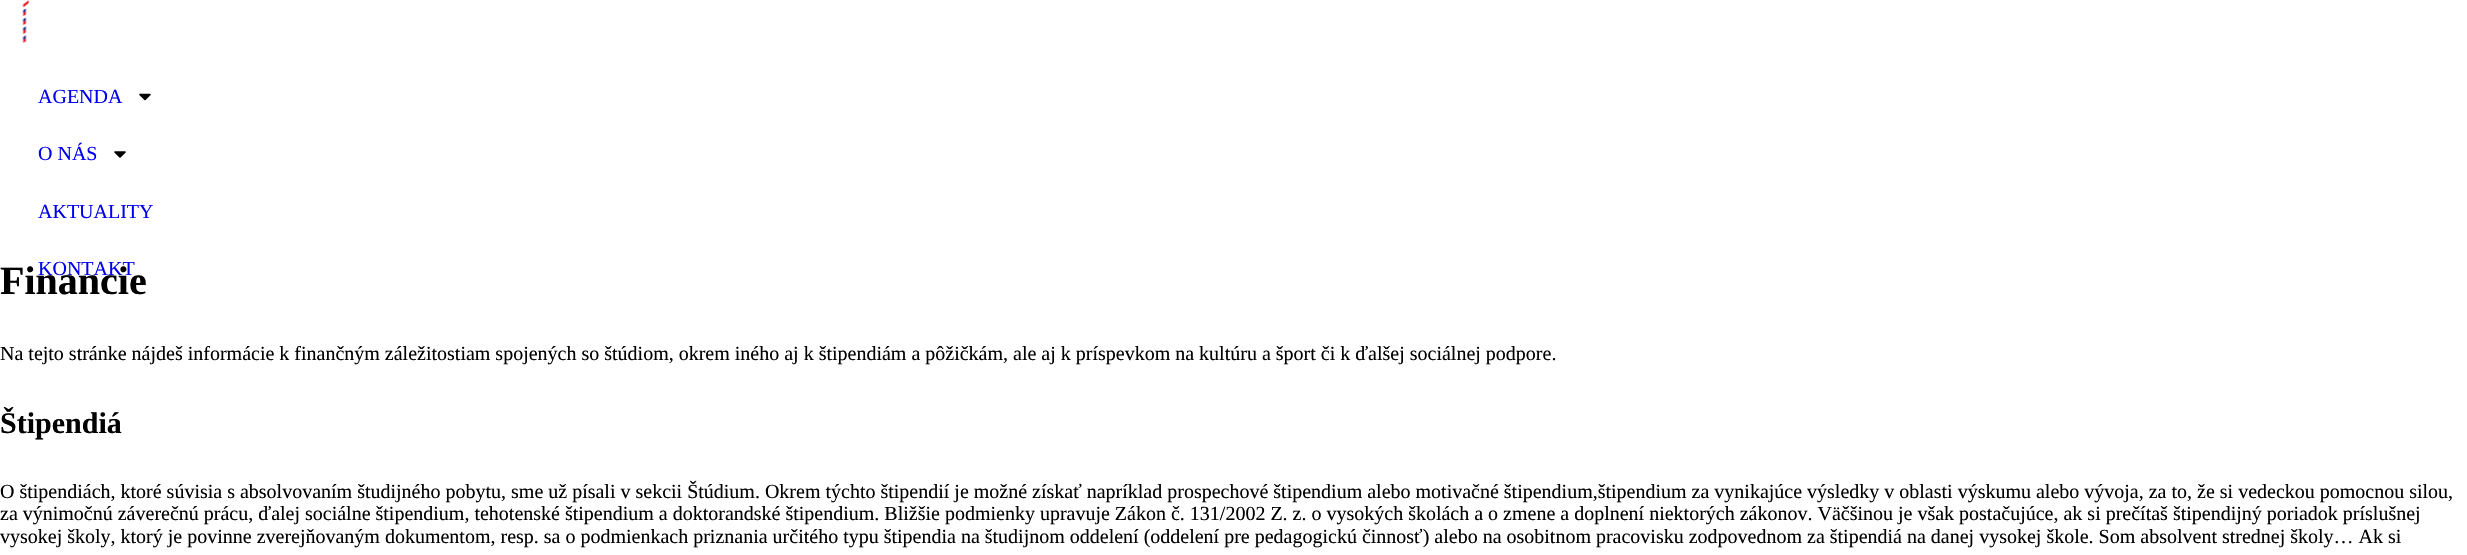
void draw(SkCanvas* c) {
SkPaint p;
p.setAntiAlias(true);
auto F=[&](const char* family, int weight, float size, bool italic = false){SkFontStyle style(weight, SkFontStyle::kNormal_Width,italic ? SkFontStyle::kItalic_Slant : SkFontStyle::kUpright_Slant);SkFont result(fontMgr->matchFamilyStyle(family, style), size);result.setSubpixel(true);return result;};
auto T=[&](const char* s, float x, float y, const SkFont& font){c->drawString(s, x, y, font, p);};
auto I=[&](const char* path, float x, float y, float w, float h){auto image = SkImages::DeferredFromEncodedData(SkData::MakeFromFileName(path));c->drawImageRect(image, SkRect::MakeXYWH(x, y, w, h), SkSamplingOptions());};
c->clear(0xffffffff);
I("1.png",22,0,8,43);
auto f1 = F("Liberation Serif",400,20);
p.setColor(0xff0000ee);
T("AGENDA",38,103,f1);
I("2.png",139,93,12,8);
T("O NÁS",38,160,f1);
I("3.png",114,151,12,7);
T("AKTUALITY",38,218,f1);
auto f2 = F("Liberation Serif",700,40);
p.setColor(0xff000000);
T("Financie",0,294,f2);
p.setColor(0xff0000ee);
T("KONTAKT",38,275,f1);
p.setColor(0xff000000);
T("Na tejto stránke nájdeš informácie k finančným záležitostiam spojených so štúdiom, okrem iného aj k štipendiám a pôžičkám, ale aj k príspevkom na kultúru a šport či k ďalšej sociálnej podpore.",0,360,f1);
auto f3 = F("Liberation Serif",700,30);
T("Štipendiá",0,433,f3);
T("O štipendiách, ktoré súvisia s absolvovaním študijného pobytu, sme už písali v sekcii Štúdium. Okrem týchto štipendií je možné získať napríklad prospechové štipendium alebo motivačné štipendium,štipendium za vynikajúce výsledky v oblasti výskumu alebo vývoja, za to, že si vedeckou pomocnou silou,",0,498,f1);
T("za výnimočnú záverečnú prácu, ďalej sociálne štipendium, tehotenské štipendium a doktorandské štipendium. Bližšie podmienky upravuje Zákon č. 131/2002 Z. z. o vysokých školách a o zmene a doplnení niektorých zákonov. Väčšinou je však postačujúce, ak si prečítaš štipendijný poriadok príslušnej",0,520,f1);
T("vysokej školy, ktorý je povinne zverejňovaným dokumentom, resp. sa o podmienkach priznania určitého typu štipendia na študijnom oddelení (oddelení pre pedagogickú činnosť) alebo na osobitnom pracovisku zodpovednom za štipendiá na danej vysokej škole. Som absolvent strednej školy… Ak si",0,543,f1);
}
